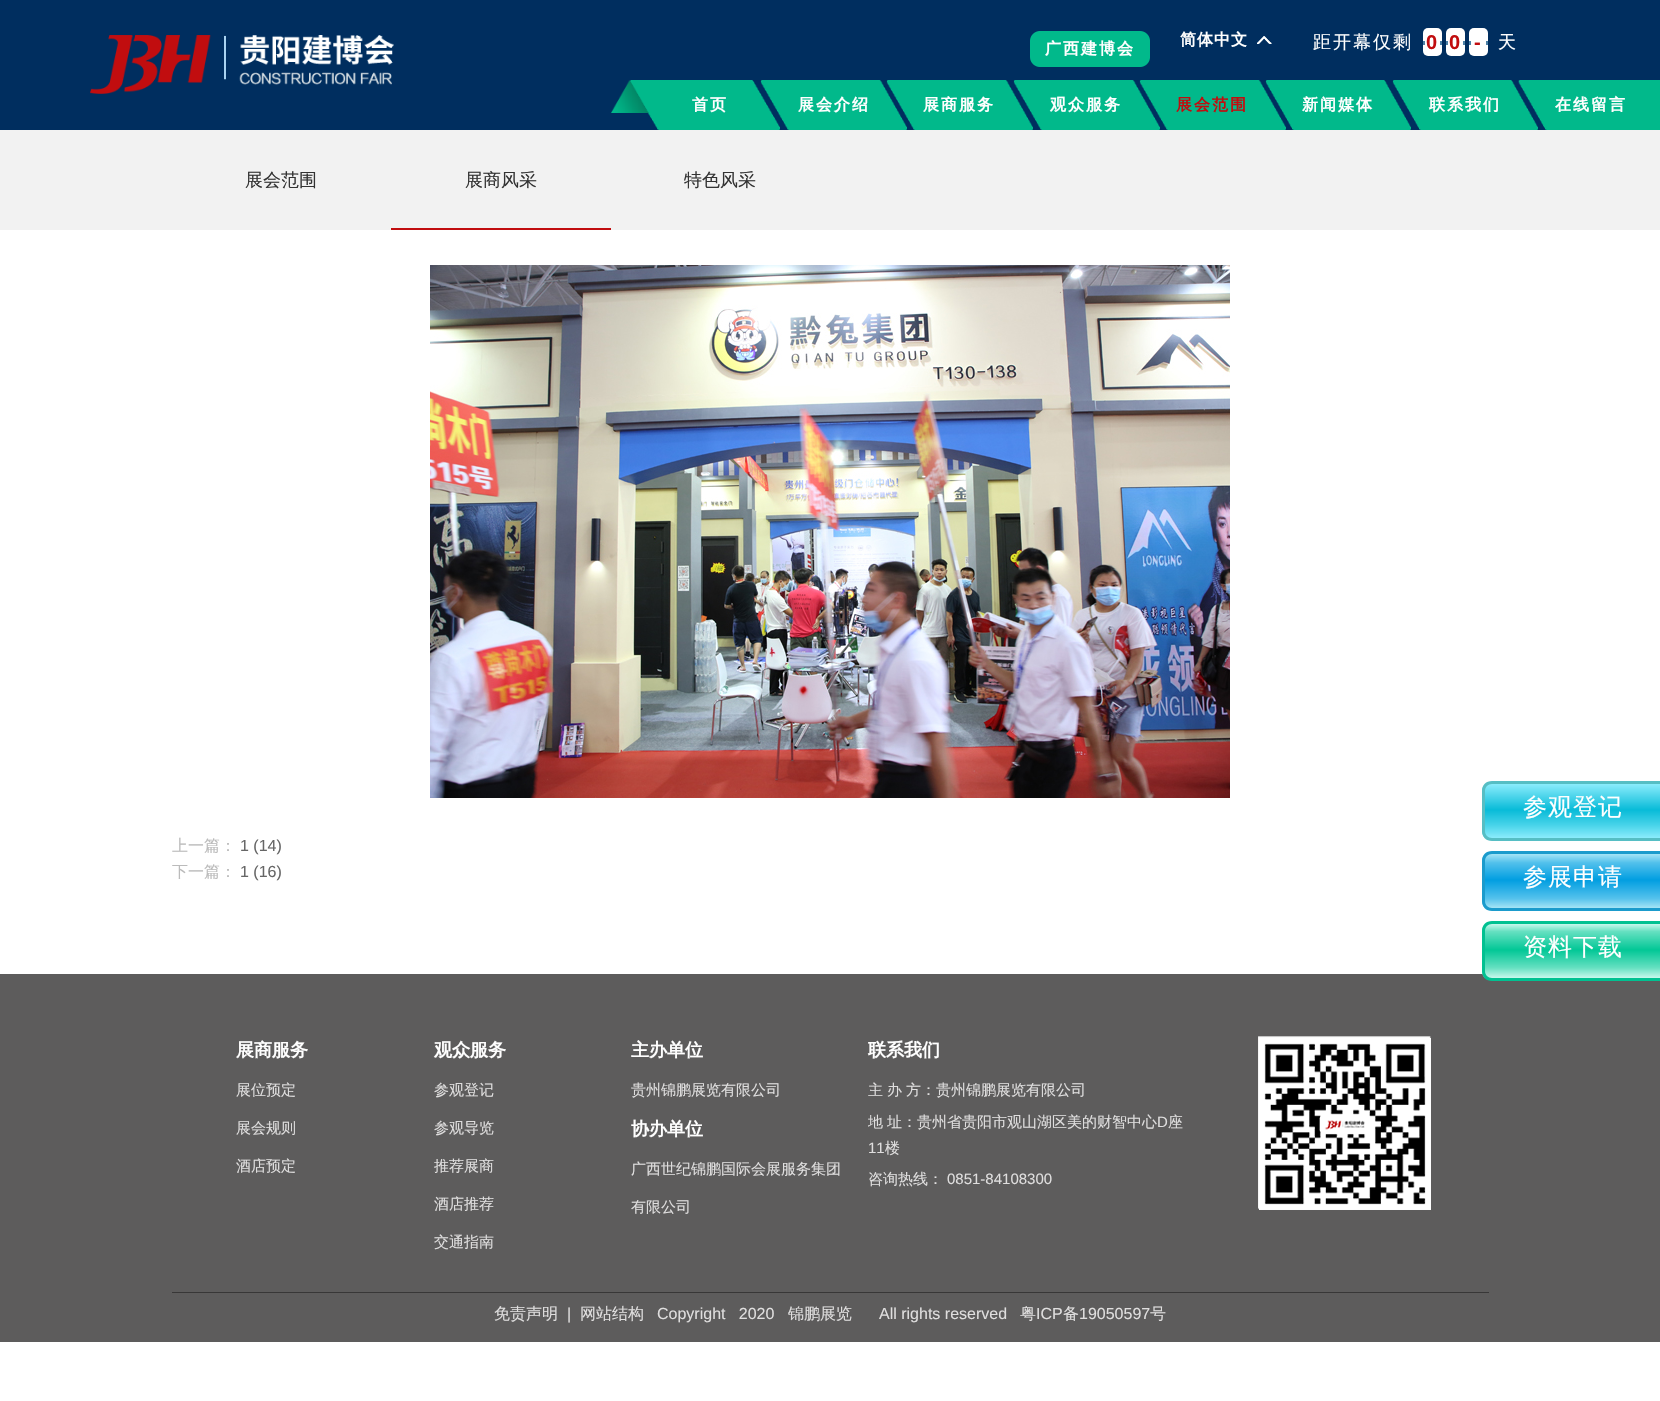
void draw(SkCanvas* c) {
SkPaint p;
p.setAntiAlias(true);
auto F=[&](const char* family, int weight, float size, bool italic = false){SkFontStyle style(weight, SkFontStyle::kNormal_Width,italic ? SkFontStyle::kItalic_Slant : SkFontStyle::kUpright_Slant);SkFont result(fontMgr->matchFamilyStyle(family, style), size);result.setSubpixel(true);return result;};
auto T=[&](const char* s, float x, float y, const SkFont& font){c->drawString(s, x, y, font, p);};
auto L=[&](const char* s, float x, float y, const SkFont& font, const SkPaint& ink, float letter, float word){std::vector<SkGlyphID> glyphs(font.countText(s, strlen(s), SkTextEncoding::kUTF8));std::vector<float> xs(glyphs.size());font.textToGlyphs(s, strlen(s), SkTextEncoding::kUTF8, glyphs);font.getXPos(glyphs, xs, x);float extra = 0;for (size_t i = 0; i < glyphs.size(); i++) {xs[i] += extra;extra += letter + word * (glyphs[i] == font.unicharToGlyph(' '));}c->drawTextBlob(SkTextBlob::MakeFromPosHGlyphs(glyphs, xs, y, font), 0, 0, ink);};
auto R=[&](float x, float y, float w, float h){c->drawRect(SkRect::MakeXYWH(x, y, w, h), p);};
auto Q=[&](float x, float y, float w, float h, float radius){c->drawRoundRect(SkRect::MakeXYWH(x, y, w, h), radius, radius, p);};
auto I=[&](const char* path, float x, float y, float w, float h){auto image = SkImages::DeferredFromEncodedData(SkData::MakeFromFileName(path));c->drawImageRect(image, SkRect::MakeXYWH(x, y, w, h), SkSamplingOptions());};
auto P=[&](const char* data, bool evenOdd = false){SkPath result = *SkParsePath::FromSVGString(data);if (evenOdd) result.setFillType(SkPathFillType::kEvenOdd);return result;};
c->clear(0xffffffff);
p.setColor(0xff002e5f);
R(0,0,1660,130);
I("1.png",90,35,304,59);
I("2.png",1030,31,120,36);
auto f1 = F("WenQuanYi Zen Hei",700,16);
p.setColor(0xffffffff);
L("广西建博会",1045,54,f1,p,2,0);
L("简体中文",1180,45,f1,p,1,0);
I("3.png",1257,36,15,8);
auto f2 = F("WenQuanYi Zen Hei",500,18);
L("距开幕仅剩",1313,48,f2,p,2,0);
Q(1423,28,19,28,5);
p.setColor(0xff4b80a6);
R(1423,41,2,4);
auto f3 = F("Liberation Sans",700,20);
p.setColor(0xffc10d0f);
L("0",1426,49,f3,p,2,0);
p.setColor(0xff4b80a6);
R(1440,41,2,4);
p.setColor(0xffffffff);
Q(1446,28,19,28,5);
p.setColor(0xff4b80a6);
R(1446,41,2,4);
p.setColor(0xffc10d0f);
L("0",1449,49,f3,p,2,0);
p.setColor(0xff4b80a6);
R(1463,41,2,4);
p.setColor(0xffffffff);
Q(1469,28,19,28,5);
p.setColor(0xff4b80a6);
R(1469,41,2,4);
p.setColor(0xffc10d0f);
L("-",1474,49,f3,p,2,0);
p.setColor(0xff4b80a6);
R(1486,41,2,4);
p.setColor(0xffffffff);
L("天",1498,48,f2,p,2,0);
I("4.png",611,80,169,50);
L("首页",692,110,f1,p,2,0);
I("5.png",760,80,147,50);
L("展会介绍",798,110,f1,p,2,0);
I("6.png",886,80,147,50);
L("展商服务",923,110,f1,p,2,0);
I("7.png",1013,80,147,50);
L("观众服务",1050,110,f1,p,2,0);
I("6.png",1139,80,147,50);
p.setColor(0xffc10d0f);
L("展会范围",1176,110,f1,p,2,0);
I("8.png",1265,80,146,50);
p.setColor(0xffffffff);
L("新闻媒体",1302,110,f1,p,2,0);
I("9.png",1392,80,146,50);
L("联系我们",1429,110,f1,p,2,0);
I("10.png",1518,80,142,50);
L("在线留言",1555,110,f1,p,2,0);
p.setColor(0xfff2f2f2);
R(0,130,1660,100);
p.setColor(0xff333333);
T("展会范围",245,186,f2);
p.setColor(0xffc10d0f);
R(391,228,220,2);
p.setColor(0xff333333);
T("展商风采",465,186,f2);
T("特色风采",684,186,f2);
I("11.png",430,265,800,533);
auto f4 = F("WenQuanYi Zen Hei",500,16);
p.setColor(0xffbbbbbb);
T("上一篇：",172,851,f4);
auto f5 = F("Liberation Sans",400,16);
p.setColor(0xff666666);
T("1 (14)",240,851,f5);
p.setColor(0xffbbbbbb);
T("下一篇：",172,877,f4);
p.setColor(0xff666666);
T("1 (16)",240,877,f5);
c->save();
c->clipPath(P("M1492 781h168v60h-168c-5.5 0-10-4.5-10-10v-40c0-5.5 4.5-10 10-10z"),true);
{
const SkColor colors[] = {0xff8becfc,0xff4ad4ea,0xff08bbd8,0xff8becfc};
const float stops[] = {0,.23,.52,1};
const SkPoint ends[] = {{1573,838}, {1573,784}};
p.setShader(SkGradientShader::MakeLinear(ends, colors, stops, 4, SkTileMode::kClamp));
p.setAlpha(255);
}
R(1482,784,178,54);
c->restore();
p.setShader(nullptr);
p.setColor(0xff56bec4);
c->drawPath(P("M1492 781h168v60h-168c-6 0-10-4-10-10v-40c0-6 4-10 10-10zm0 3h168v54h-168c-4 0-7-3-7-7v-40c0-4 3-7 7-7z",true),p);
auto f6 = F("WenQuanYi Zen Hei",500,24);
p.setColor(0xffffffff);
L("参观登记",1523,815,f6,p,1,0);
c->save();
c->clipPath(P("M1492 851h168v60h-168c-5.5 0-10-4.5-10-10v-40c0-5.5 4.5-10 10-10z"),true);
{
const SkColor colors[] = {0xffa5e4f6,0xff53c1ec,0xff019ee1,0xff53c1ec,0xffa5e4f6};
const float stops[] = {0,.18,.52,.84,1};
const SkPoint ends[] = {{1573,908}, {1573,854}};
p.setShader(SkGradientShader::MakeLinear(ends, colors, stops, 5, SkTileMode::kClamp));
p.setAlpha(255);
}
R(1482,854,178,54);
c->restore();
p.setShader(nullptr);
p.setColor(0xff1b9bcc);
c->drawPath(P("M1492 851h168v60h-168c-6 0-10-4-10-10v-40c0-6 4-10 10-10zm0 3h168v54h-168c-4 0-7-3-7-7v-40c0-4 3-7 7-7z",true),p);
p.setColor(0xffffffff);
L("参展申请",1523,885,f6,p,1,0);
p.setColor(0xff5d5c5c);
R(0,974,1660,368);
c->save();
c->clipPath(P("M1492 921h168v60h-168c-5.5 0-10-4.5-10-10v-40c0-5.5 4.5-10 10-10z"),true);
{
const SkColor colors[] = {0xffc8f8ec,0xff65e0c1,0xff02c796,0xff65e0c1,0xffc8f8ec};
const float stops[] = {0,.19,.52,.86,1};
const SkPoint ends[] = {{1573,978}, {1573,924}};
p.setShader(SkGradientShader::MakeLinear(ends, colors, stops, 5, SkTileMode::kClamp));
p.setAlpha(255);
}
R(1482,924,178,54);
c->restore();
p.setShader(nullptr);
p.setColor(0xff01c191);
c->drawPath(P("M1492 921h168v60h-168c-6 0-10-4-10-10v-40c0-6 4-10 10-10zm0 3h168v54h-168c-4 0-7-3-7-7v-40c0-4 3-7 7-7z",true),p);
p.setColor(0xffffffff);
L("资料下载",1523,955,f6,p,1,0);
auto f7 = F("WenQuanYi Zen Hei",700,18);
T("展商服务",236,1056,f7);
auto f8 = F("WenQuanYi Zen Hei",500,15);
p.setColor(0xffdfdede);
T("展位预定",236,1095,f8);
T("展会规则",236,1133,f8);
T("酒店预定",236,1171,f8);
p.setColor(0xffffffff);
T("观众服务",434,1056,f7);
p.setColor(0xffdfdede);
T("参观登记",434,1095,f8);
T("参观导览",434,1133,f8);
T("推荐展商",434,1171,f8);
T("酒店推荐",434,1209,f8);
T("交通指南",434,1247,f8);
p.setColor(0xffffffff);
T("主办单位",631,1056,f7);
p.setColor(0xffdfdede);
T("贵州锦鹏展览有限公司",631,1095,f8);
p.setColor(0xffffffff);
T("协办单位",631,1135,f7);
p.setColor(0xffdfdede);
T("广西世纪锦鹏国际会展服务集团",631,1174,f8);
T("有限公司",631,1212,f8);
p.setColor(0xffffffff);
T("联系我们",868,1056,f7);
p.setColor(0xffdfdede);
T("主",868,1095,f8);
T("办",887,1095,f8);
T("方：贵州锦鹏展览有限公司",906,1095,f8);
T("地",868,1127,f8);
T("址：贵州省贵阳市观山湖区美的财智中心",887,1127,f8);
auto f9 = F("Liberation Sans",400,15);
T("D",1157,1127,f9);
T("座",1168,1127,f8);
T("11",868,1153,f9);
T("楼",885,1153,f8);
T("咨询热线：",868,1184,f8);
T("0851-84108300",947,1184,f9);
I("12.png",1258,1036,173,174);
p.setColor(0xff383737);
R(172,1292,1317,1);
p.setColor(0xffdfdede);
T("免责声明",494,1319,f4);
T("|",567,1319,f5);
T("网站结构",580,1319,f4);
T("Copyright   2020",657,1319,f5);
T("锦鹏展览",788,1319,f4);
T("All rights reserved",879,1319,f5);
T("粤",1020,1319,f4);
T("ICP",1036,1319,f5);
T("备",1063,1319,f4);
T("19050597",1079,1319,f5);
T("号",1150,1319,f4);
}
